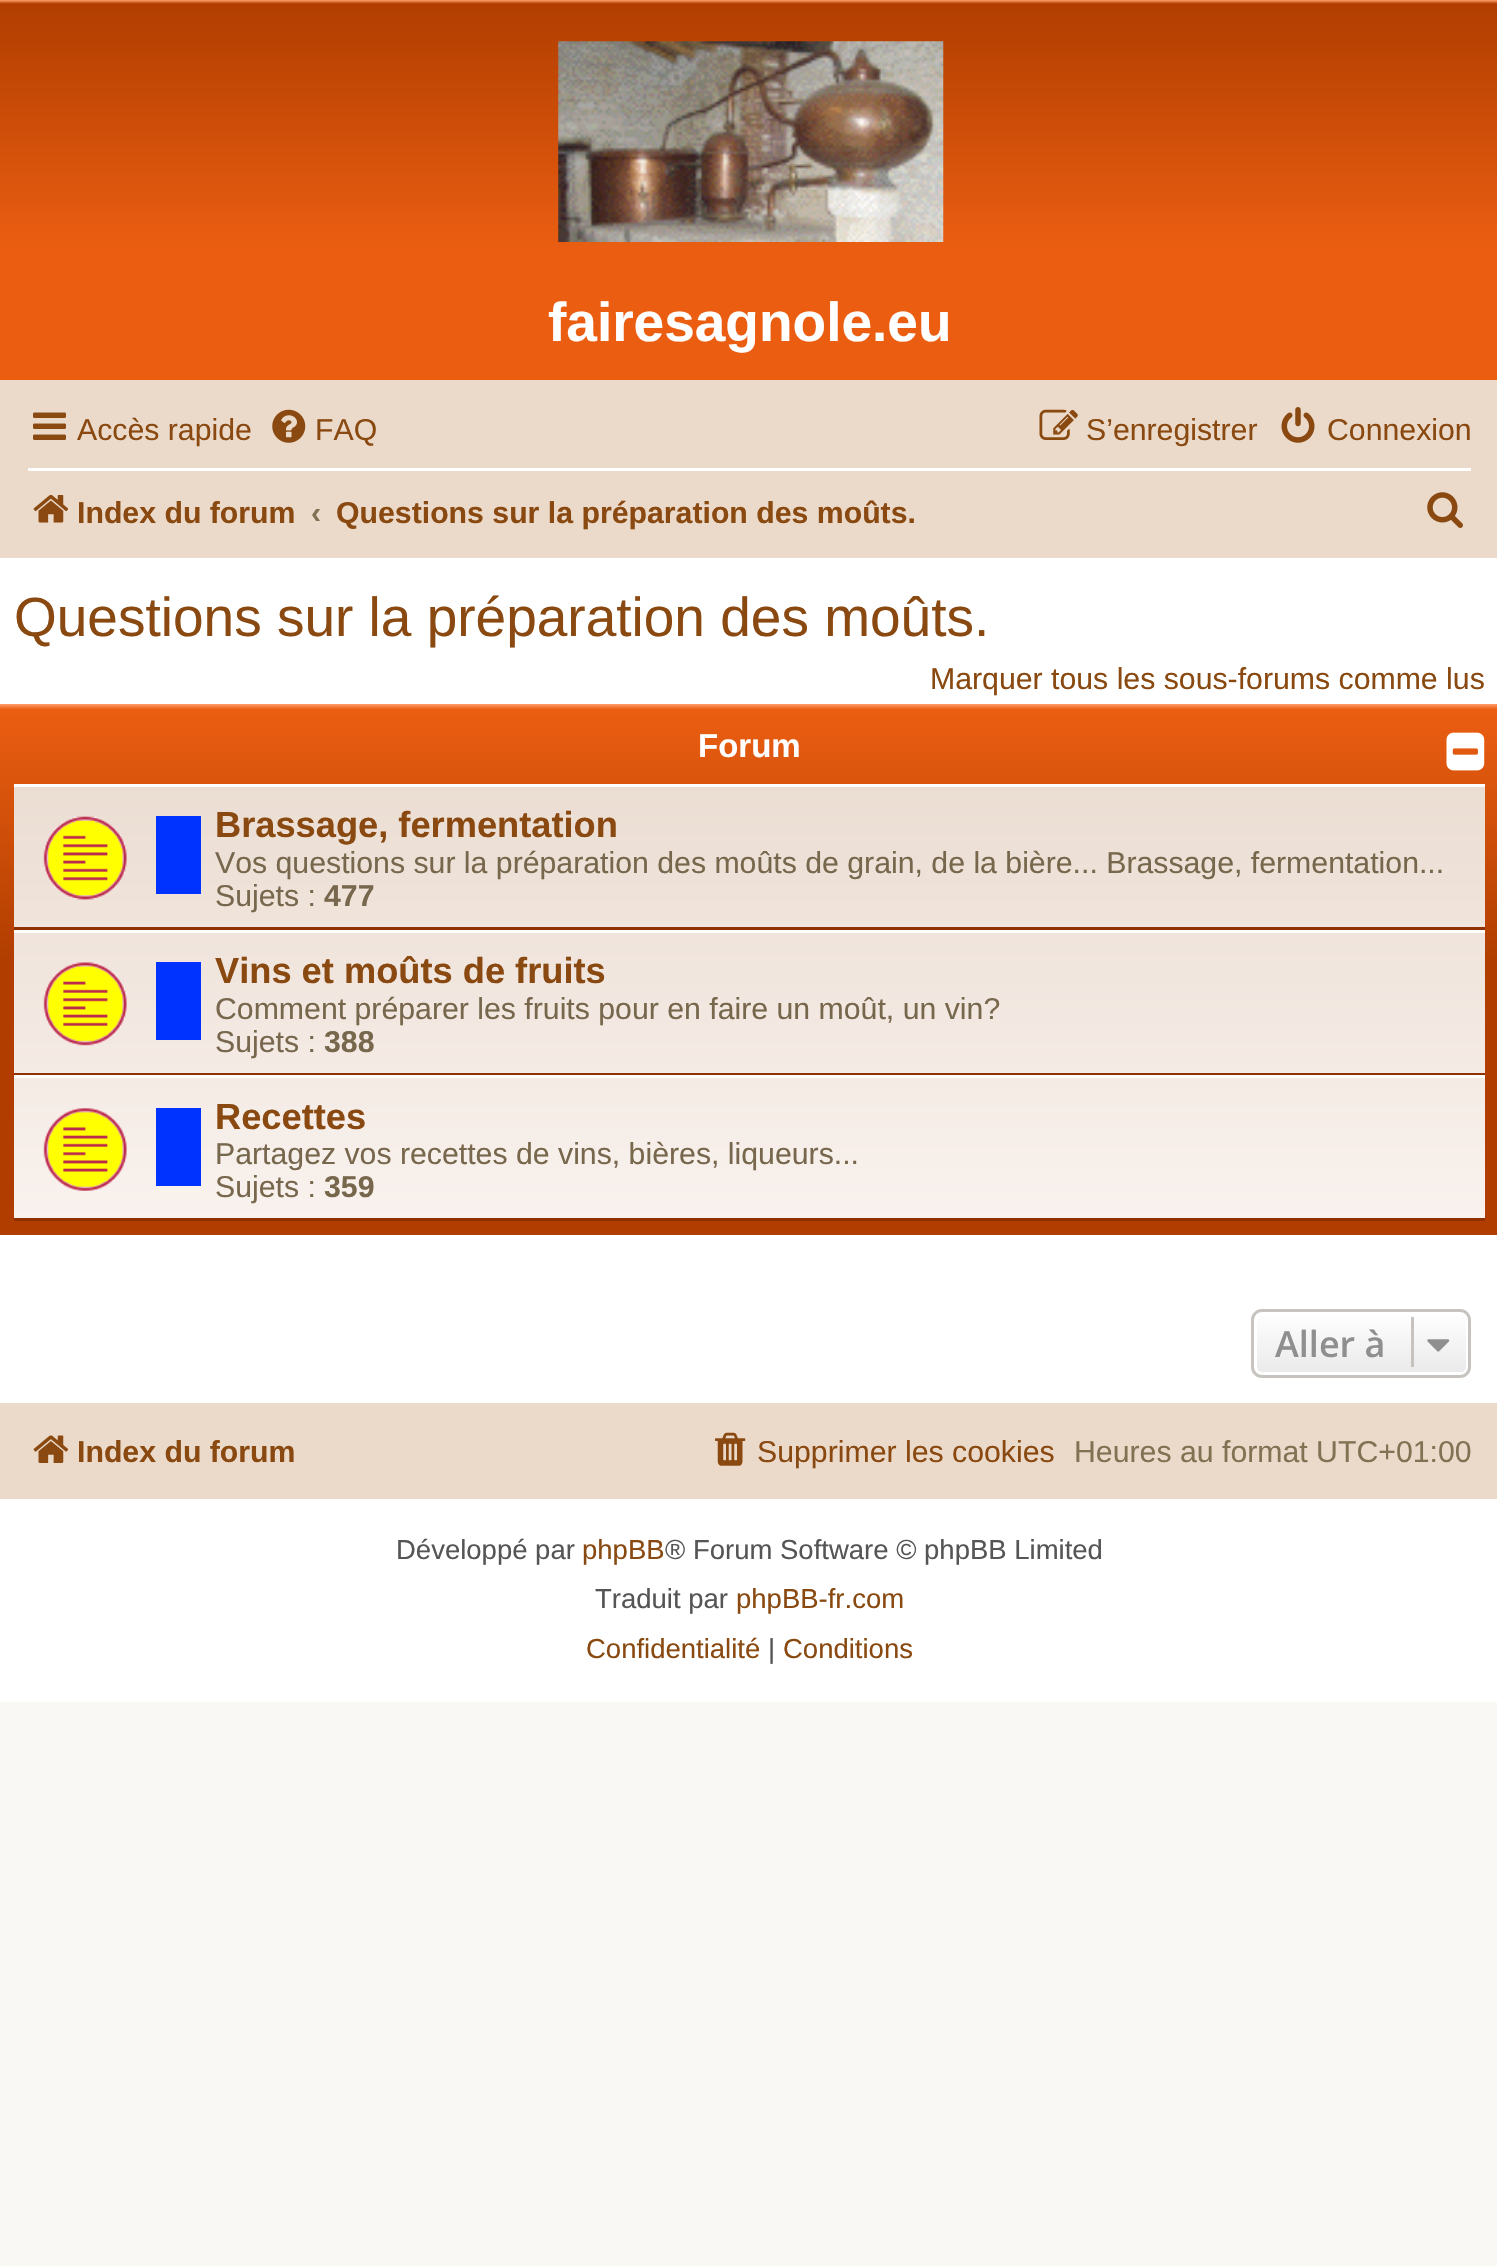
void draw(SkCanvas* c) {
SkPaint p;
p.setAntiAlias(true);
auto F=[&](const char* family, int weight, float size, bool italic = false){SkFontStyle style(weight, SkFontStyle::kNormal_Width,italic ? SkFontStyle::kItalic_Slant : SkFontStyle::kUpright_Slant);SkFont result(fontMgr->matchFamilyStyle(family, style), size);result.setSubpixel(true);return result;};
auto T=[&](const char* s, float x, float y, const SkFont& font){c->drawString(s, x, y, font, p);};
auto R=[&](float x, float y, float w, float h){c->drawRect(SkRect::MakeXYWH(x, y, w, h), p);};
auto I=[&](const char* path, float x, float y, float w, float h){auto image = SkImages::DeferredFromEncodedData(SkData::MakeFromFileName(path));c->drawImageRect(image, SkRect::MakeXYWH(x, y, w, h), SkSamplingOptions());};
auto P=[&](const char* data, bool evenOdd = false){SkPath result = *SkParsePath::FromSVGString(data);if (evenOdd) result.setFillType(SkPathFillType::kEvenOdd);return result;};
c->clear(0xfffaf8f5);
p.setColor(0xffffffff);
R(0,558,1497,1144);
{
const SkColor colors[] = {0xffff9d6a,0xffb13e00,0xffeb5e12,0xffeb5e12};
const float stops[] = {0,.01,.66,1};
const SkPoint ends[] = {{749,0}, {749,382}};
p.setShader(SkGradientShader::MakeLinear(ends, colors, stops, 4, SkTileMode::kClamp));
p.setAlpha(255);
}
R(0,0,1497,380);
I("1.png",558,41,386,201);
auto f1 = F("Liberation Sans",700,55);
p.setShader(nullptr);
p.setColor(0xffffffff);
T("fairesagnole.eu",548,341,f1);
p.setColor(0xffebdaca);
R(0,380,1497,178);
I("2.png",33,412,33,28);
auto f2 = F("Liberation Sans",400,30.25);
p.setColor(0xff894910);
T("Accès rapide",77,440,f2);
I("3.png",272,409,34,34);
T("FAQ",315,440,f2);
I("4.png",1039,409,39,31);
T("S’enregistrer",1086,440,f2);
I("5.png",1281,407,34,36);
T("Connexion",1327,440,f2);
p.setColor(0xffffffff);
R(28,468,1443,3);
I("6.png",33,495,36,28);
auto f3 = F("Liberation Sans",700,30.25);
p.setColor(0xff894910);
T("Index du forum",77,523,f3);
p.setColor(0xff827253);
T("‹",311,523,f3);
p.setColor(0xff894910);
T("Questions sur la préparation des moûts.",336,523,f3);
I("7.png",1427,492,36,36);
auto f4 = F("Liberation Sans",400,55);
T("Questions sur la préparation des moûts.",14,636,f4);
T("Marquer tous les sous-forums comme lus",930,689,f2);
{
const SkColor colors[] = {0xffff9d6a,0xffeb5e12,0xffb13e00,0xffb13e00};
const float stops[] = {0,.01,.48,1};
const SkPoint ends[] = {{749,704}, {749,1235}};
p.setShader(SkGradientShader::MakeLinear(ends, colors, stops, 4, SkTileMode::kClamp));
p.setAlpha(255);
}
R(0,704,1497,531);
auto f5 = F("Liberation Sans",700,33);
p.setShader(nullptr);
p.setColor(0xffffffff);
T("Forum",698,757,f5);
I("8.png",1446,732,39,39);
{
const SkColor colors[] = {0xffebddd2,0xfff9f2ee};
const float stops[] = {0,1};
const SkPoint ends[] = {{749,784}, {749,1221}};
p.setShader(SkGradientShader::MakeLinear(ends, colors, stops, 2, SkTileMode::kClamp));
p.setAlpha(255);
}
R(14,787,1471,431);
p.setShader(nullptr);
p.setColor(0xffffffff);
R(14,784,1471,3);
p.setColor(0xff8f3100);
R(14,927,1471,3);
I("9.png",43,816,84,84);
p.setColor(0xff0033ff);
R(156,816,45,78);
auto f6 = F("Liberation Sans",700,36.25);
p.setColor(0xff894910);
T("Brassage, fermentation",215,837,f6);
p.setColor(0xff77674c);
T("Vos questions sur la préparation des moûts de grain, de la bière... Brassage, fermentation...",215,873,f2);
T("Sujets :",215,906,f2);
T("477",324,906,f3);
p.setColor(0xffffffff);
R(14,930,1471,3);
p.setColor(0xff8f3100);
R(14,1073,1471,2);
I("10.png",43,962,84,84);
p.setColor(0xff0033ff);
R(156,962,45,78);
p.setColor(0xff894910);
T("Vins et moûts de fruits",215,983,f6);
p.setColor(0xff77674c);
T("Comment préparer les fruits pour en faire un moût, un vin?",215,1019,f2);
T("Sujets :",215,1052,f2);
T("388",324,1052,f3);
p.setColor(0xffffffff);
R(14,1075,1471,3);
p.setColor(0xff8f3100);
R(14,1218,1471,3);
I("11.png",43,1108,84,83);
p.setColor(0xff0033ff);
R(156,1108,45,78);
p.setColor(0xff894910);
T("Recettes",215,1129,f6);
p.setColor(0xff77674c);
T("Partagez vos recettes de vins, bières, liqueurs...",215,1164,f2);
T("Sujets :",215,1197,f2);
T("359",324,1197,f3);
c->save();
c->clipPath(P("M1262 1309h198c6 0 11 5 11 11v47c0 6-5 11-11 11h-198c-6 0-11-5-11-11v-47c0-6 5-11 11-11z"),true);
{
const SkColor colors[] = {0xffffffff,0xffe9e9e9};
const float stops[] = {0,1};
const SkPoint ends[] = {{1361,1312}, {1361,1375}};
p.setShader(SkGradientShader::MakeLinear(ends, colors, stops, 2, SkTileMode::kClamp));
p.setAlpha(255);
}
R(1251,1312,220,63);
c->restore();
p.setStroke(true);
p.setStrokeWidth(3);
p.setShader(nullptr);
p.setColor(0xffffffff);
c->drawRoundRect(SkRect::MakeXYWH(1255.5,1313.5,212,60),6.5,6.5,p);
p.setColor(0xffc7c3bf);
c->drawRoundRect(SkRect::MakeXYWH(1252.5,1310.5,217,66),9.5,9.5,p);
auto f7 = F("Open Sans",600,36);
p.setStroke(false);
p.setColor(0xff8f8f8f);
T("Aller à",1275,1357,f7);
p.setColor(0xffc7c3bf);
R(1411,1317,3,50);
I("12.png",1427,1339,23,13);
p.setColor(0xffebdaca);
R(0,1403,1497,96);
I("13.png",33,1435,36,28);
p.setColor(0xff894910);
T("Index du forum",77,1462,f3);
I("14.png",715,1432,31,34);
T("Supprimer les cookies",757,1462,f2);
p.setColor(0xff827253);
T("Heures au format UTC+01:00",1074,1462,f2);
auto f8 = F("Liberation Sans",400,27.5);
p.setColor(0xff555555);
T("Développé par",396,1559,f8);
p.setColor(0xff894910);
T("phpBB",582,1559,f8);
p.setColor(0xff555555);
T("® Forum Software © phpBB Limited",665,1559,f8);
T("Traduit par",595,1608,f8);
p.setColor(0xff894910);
T("phpBB-fr.com",736,1608,f8);
T("Confidentialité",586,1658,f8);
p.setColor(0xff555555);
T("|",768,1658,f8);
p.setColor(0xff894910);
T("Conditions",783,1658,f8);
}
